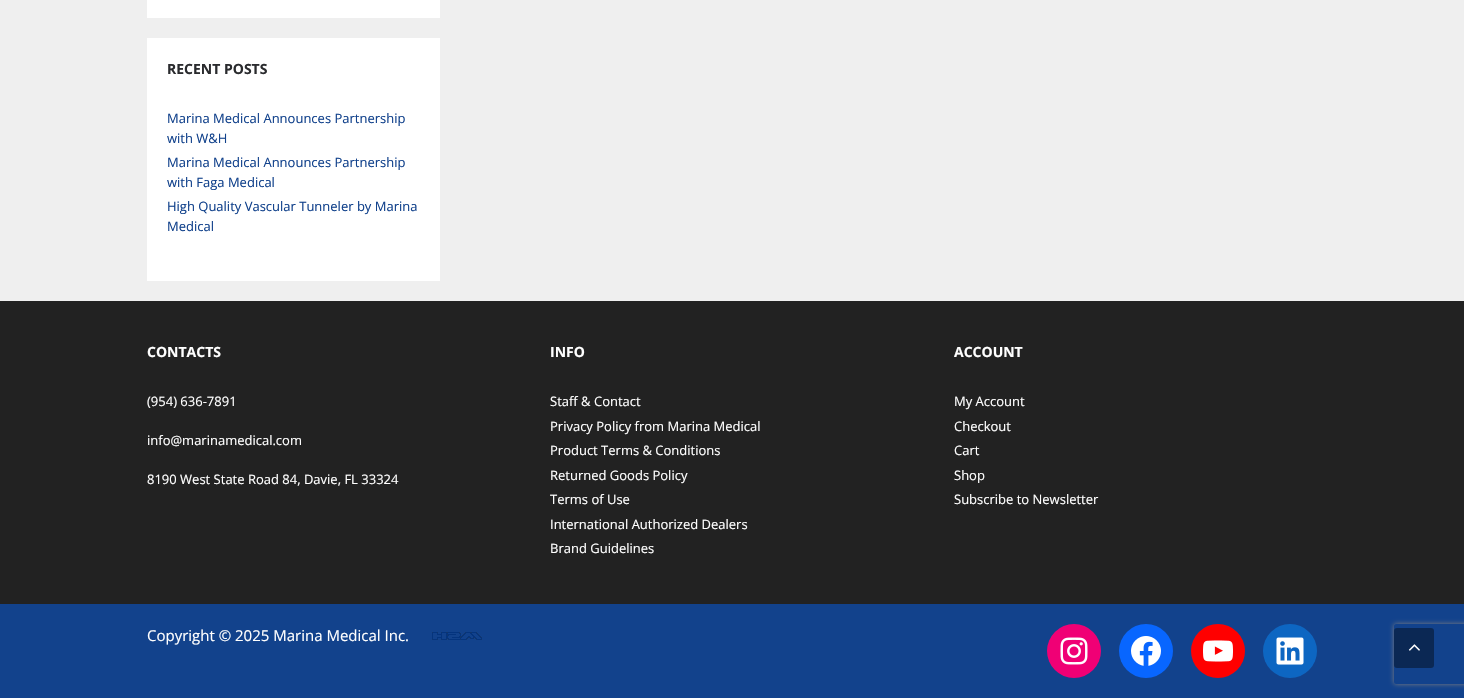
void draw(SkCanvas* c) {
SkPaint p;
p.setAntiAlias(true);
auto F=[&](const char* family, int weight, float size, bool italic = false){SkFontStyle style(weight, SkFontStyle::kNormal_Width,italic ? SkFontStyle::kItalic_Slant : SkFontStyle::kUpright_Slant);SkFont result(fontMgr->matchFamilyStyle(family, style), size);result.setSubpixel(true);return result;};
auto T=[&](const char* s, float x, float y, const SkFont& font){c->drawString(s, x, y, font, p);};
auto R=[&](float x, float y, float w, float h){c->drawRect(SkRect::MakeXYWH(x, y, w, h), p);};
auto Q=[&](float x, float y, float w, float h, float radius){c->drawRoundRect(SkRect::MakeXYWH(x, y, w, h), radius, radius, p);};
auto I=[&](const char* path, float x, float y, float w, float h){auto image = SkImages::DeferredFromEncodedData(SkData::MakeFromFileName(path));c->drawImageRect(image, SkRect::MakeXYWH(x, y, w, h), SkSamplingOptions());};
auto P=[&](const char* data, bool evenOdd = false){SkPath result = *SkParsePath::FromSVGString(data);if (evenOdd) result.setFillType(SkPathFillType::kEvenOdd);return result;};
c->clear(0xffefefef);
p.setColor(0xffffffff);
R(147,0,293,18);
R(147,38,293,243);
auto f1 = F("Open Sans",700,14);
p.setColor(0xff2a2b2e);
T("RECENT POSTS",167,74,f1);
auto f2 = F("Open Sans",400,13);
p.setColor(0xff12428c);
T("Marina Medical Announces Partnership",167,123,f2);
T("with W&H",167,143,f2);
T("Marina Medical Announces Partnership",167,167,f2);
T("with Faga Medical",167,187,f2);
T("High Quality Vascular Tunneler by Marina",167,211,f2);
T("Medical",167,231,f2);
p.setColor(0xff222222);
R(0,301,1464,303);
p.setColor(0xffffffff);
T("CONTACTS",147,357,f1);
T("(954) 636-7891",147,406,f2);
T("info@marinamedical.com",147,445,f2);
T("8190 West State Road 84, Davie, FL 33324",147,484,f2);
T("INFO",550,357,f1);
T("Staff & Contact",550,406,f2);
T("Privacy Policy from Marina Medical",550,431,f2);
T("Product Terms & Conditions",550,455,f2);
T("Returned Goods Policy",550,480,f2);
T("Terms of Use",550,504,f2);
T("International Authorized Dealers",550,529,f2);
T("Brand Guidelines",550,553,f2);
T("ACCOUNT",954,357,f1);
T("My Account",954,406,f2);
T("Checkout",954,431,f2);
T("Cart",954,455,f2);
T("Shop",954,480,f2);
T("Subscribe to Newsletter",954,504,f2);
p.setColor(0xff12428c);
R(0,604,1464,94);
auto f3 = F("Open Sans",400,15);
p.setColor(0xffffffff);
T("Copyright © 2025 Marina Medical Inc.",147,641,f3);
I("1.png",432,632,50,8);
p.setColor(0xfff00075);
c->drawCircle(1074,651,27,p);
I("2.png",1060,637,28,28);
p.setColor(0xff0866ff);
c->drawCircle(1146,651,27,p);
I("3.png",1131,636,30,30);
p.setColor(0xffff0000);
c->drawCircle(1218,651,27,p);
I("4.png",1203,640,30,22);
p.setColor(0xff0d66c2);
c->drawCircle(1290,651,27,p);
I("5.png",1276,637,28,28);
c->save();
c->clipPath(P("M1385 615h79v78h-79zm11 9h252c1 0 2 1 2 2v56c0 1-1 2-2 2h-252c-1 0-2-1-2-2v-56c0-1 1-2 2-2z",true),true);
p.setColor(0xff808080);
p.setMaskFilter(SkMaskFilter::MakeBlur(kNormal_SkBlurStyle, 2.5));
c->drawRoundRect(SkRect::MakeXYWH(1394,624,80,60),2,2,p);
p.setMaskFilter(nullptr);
c->restore();
p.setColor(0xff0b2854);
Q(1394,628,40,40,3);
I("6.png",1408,644,12,7);
}
